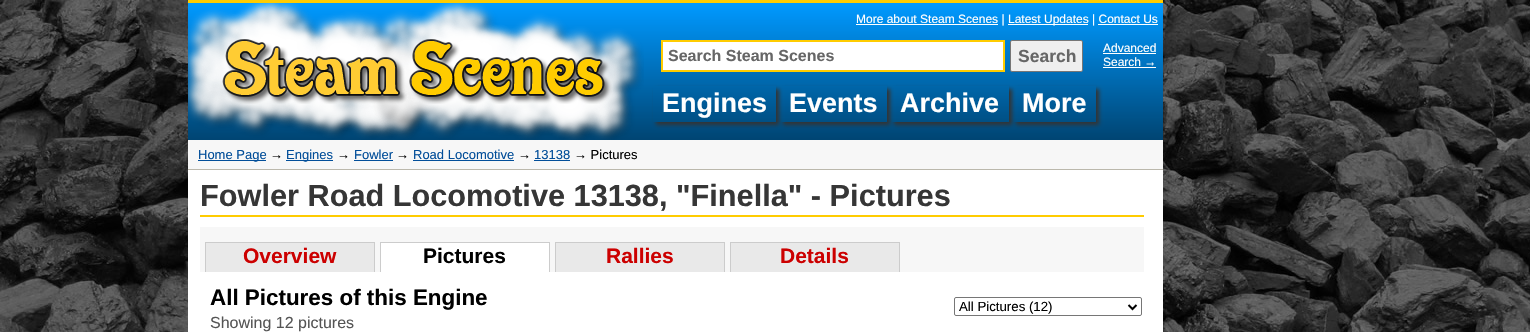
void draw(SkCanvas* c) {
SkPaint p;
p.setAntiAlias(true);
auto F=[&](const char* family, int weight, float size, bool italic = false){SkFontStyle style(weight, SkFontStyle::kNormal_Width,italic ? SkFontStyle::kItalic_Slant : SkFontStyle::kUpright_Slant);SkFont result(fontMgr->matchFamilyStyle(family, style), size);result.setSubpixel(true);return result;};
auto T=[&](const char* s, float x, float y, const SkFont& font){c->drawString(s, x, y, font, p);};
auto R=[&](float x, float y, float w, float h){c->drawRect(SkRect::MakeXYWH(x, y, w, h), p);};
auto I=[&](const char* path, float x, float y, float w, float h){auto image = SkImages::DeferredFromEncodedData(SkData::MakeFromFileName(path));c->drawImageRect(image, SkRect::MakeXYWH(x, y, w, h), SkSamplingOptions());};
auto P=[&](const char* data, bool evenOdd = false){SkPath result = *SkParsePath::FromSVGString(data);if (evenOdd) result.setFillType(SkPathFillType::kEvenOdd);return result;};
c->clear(0xffffffff);
I("1.png",0,0,1530,332);
p.setColor(0xffffffff);
R(188,170,975,162);
p.setColor(0xffffcc00);
R(188,0,975,3);
I("2.png",644,3,519,137);
I("3.png",188,3,456,137);
p.setColor(0xffffffff);
R(856,24,142,1);
auto f1 = F("Liberation Sans",400,12);
T("More about Steam Scenes |",856,23,f1);
R(1008,24,80,1);
T("Latest Updates | Contact Us",1008,23,f1);
R(1098,24,60,1);
c->drawRect(SkRect::MakeXYWH(662,41,342,30),p);
p.setStroke(true);
p.setStrokeWidth(2);
p.setColor(0xffffcc00);
c->drawRect(SkRect::MakeXYWH(662,41,342,30),p);
auto f2 = F("Liberation Sans",700,16);
p.setStroke(false);
p.setColor(0xff666666);
T("Search Steam Scenes",668,61,f2);
p.setColor(0xffefefef);
c->drawRoundRect(SkRect::MakeXYWH(1010.5,40.5,72,31),1.5,1.5,p);
p.setStroke(true);
p.setStrokeWidth(1);
p.setColor(0xff767676);
c->drawRoundRect(SkRect::MakeXYWH(1010.5,40.5,72,31),1.5,1.5,p);
auto f3 = F("Liberation Sans",700,17.5);
p.setStroke(false);
p.setColor(0xff666666);
T("Search",1018,62,f3);
p.setColor(0xffffffff);
T("Advanced",1103,52,f1);
R(1103,53,53,1);
T("Search →",1103,66,f1);
R(1103,67,53,1);
c->save();
c->clipPath(P("M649 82h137v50h-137zm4 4h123v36h-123z",true),true);
p.setColor(0xff333333);
p.setMaskFilter(SkMaskFilter::MakeBlur(kNormal_SkBlurStyle, 2));
c->drawRect(SkRect::MakeXYWH(656,89,123,36),p);
p.setMaskFilter(nullptr);
c->restore();
auto f4 = F("Liberation Sans",700,27);
p.setColor(0xffffffff);
T("Engines",662,112,f4);
c->save();
c->clipPath(P("M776 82h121v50h-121zm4 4h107v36h-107z",true),true);
p.setColor(0xff333333);
p.setMaskFilter(SkMaskFilter::MakeBlur(kNormal_SkBlurStyle, 2));
c->drawRect(SkRect::MakeXYWH(783,89,107,36),p);
p.setMaskFilter(nullptr);
c->restore();
p.setColor(0xffffffff);
T("Events",789,112,f4);
c->save();
c->clipPath(P("M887 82h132v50h-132zm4 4h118v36h-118z",true),true);
p.setColor(0xff333333);
p.setMaskFilter(SkMaskFilter::MakeBlur(kNormal_SkBlurStyle, 2));
c->drawRect(SkRect::MakeXYWH(894,89,118,36),p);
p.setMaskFilter(nullptr);
c->restore();
p.setColor(0xffffffff);
T("Archive",900,112,f4);
c->save();
c->clipPath(P("M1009 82h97v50h-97zm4 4h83v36h-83z",true),true);
p.setColor(0xff333333);
p.setMaskFilter(SkMaskFilter::MakeBlur(kNormal_SkBlurStyle, 2));
c->drawRect(SkRect::MakeXYWH(1016,89,83,36),p);
p.setMaskFilter(nullptr);
c->restore();
p.setColor(0xffffffff);
T("More",1022,112,f4);
p.setColor(0xfff7f7f7);
R(188,140,975,29);
p.setColor(0xffbbb8ac);
R(188,169,975,1);
p.setColor(0xff024e99);
R(198,160,68,1);
auto f5 = F("Liberation Sans",400,13);
T("Home Page",198,159,f5);
p.setColor(0xff000000);
T("→",270,159,f5);
p.setColor(0xff024e99);
R(286,160,47,1);
T("Engines",286,159,f5);
p.setColor(0xff000000);
T("→",337,159,f5);
p.setColor(0xff024e99);
T("Fowler",354,159,f5);
R(354,160,39,1);
p.setColor(0xff000000);
T("→",396,159,f5);
p.setColor(0xff024e99);
T("Road Locomotive",413,159,f5);
R(413,160,101,1);
p.setColor(0xff000000);
T("→",518,159,f5);
p.setColor(0xff024e99);
T("13138",534,159,f5);
R(534,160,36,1);
p.setColor(0xff000000);
T("→ Pictures",574,159,f5);
p.setColor(0xffffcc00);
R(200,215,944,2);
auto f6 = F("Liberation Sans",700,30.7);
p.setColor(0xff363636);
T("Fowler Road Locomotive 13138, \"Finella\" - Pictures",200,206,f6);
p.setColor(0xfff7f7f7);
R(200,227,944,45);
p.setColor(0xffe9e9e9);
R(206,243,168,29);
p.setColor(0xffcccccc);
R(205,242,170,1);
R(374,242,1,30);
R(205,242,1,30);
auto f7 = F("Liberation Sans",700,21);
p.setColor(0xffcc0000);
T("Overview",243,263,f7);
p.setColor(0xffffffff);
R(381,243,168,29);
p.setColor(0xffcccccc);
R(380,242,170,1);
R(549,242,1,30);
R(380,242,1,30);
p.setColor(0xff000000);
T("Pictures",423,263,f7);
p.setColor(0xffe9e9e9);
R(556,243,168,29);
p.setColor(0xffcccccc);
R(555,242,170,1);
R(724,242,1,30);
R(555,242,1,30);
p.setColor(0xffcc0000);
T("Rallies",606,263,f7);
p.setColor(0xffe9e9e9);
R(731,243,168,29);
p.setColor(0xffcccccc);
R(730,242,170,1);
R(899,242,1,30);
R(730,242,1,30);
p.setColor(0xffcc0000);
T("Details",780,263,f7);
auto f8 = F("Liberation Sans",700,22.4);
p.setColor(0xff000000);
T("All Pictures of this Engine",210,305,f8);
auto f9 = F("Liberation Sans",400,16);
p.setColor(0xff555555);
T("Showing 12 pictures",210,328,f9);
p.setStroke(true);
p.setColor(0xff767676);
c->drawRoundRect(SkRect::MakeXYWH(954.5,297.5,187,18),1.5,1.5,p);
p.setStrokeWidth(2);
p.setColor(0xff000000);
c->drawPath(P("M1128.5 305l4 4l4-4"),p);
auto f10 = F("Liberation Sans",400,13.25);
p.setStroke(false);
T("All Pictures (12)",959,311,f10);
}
